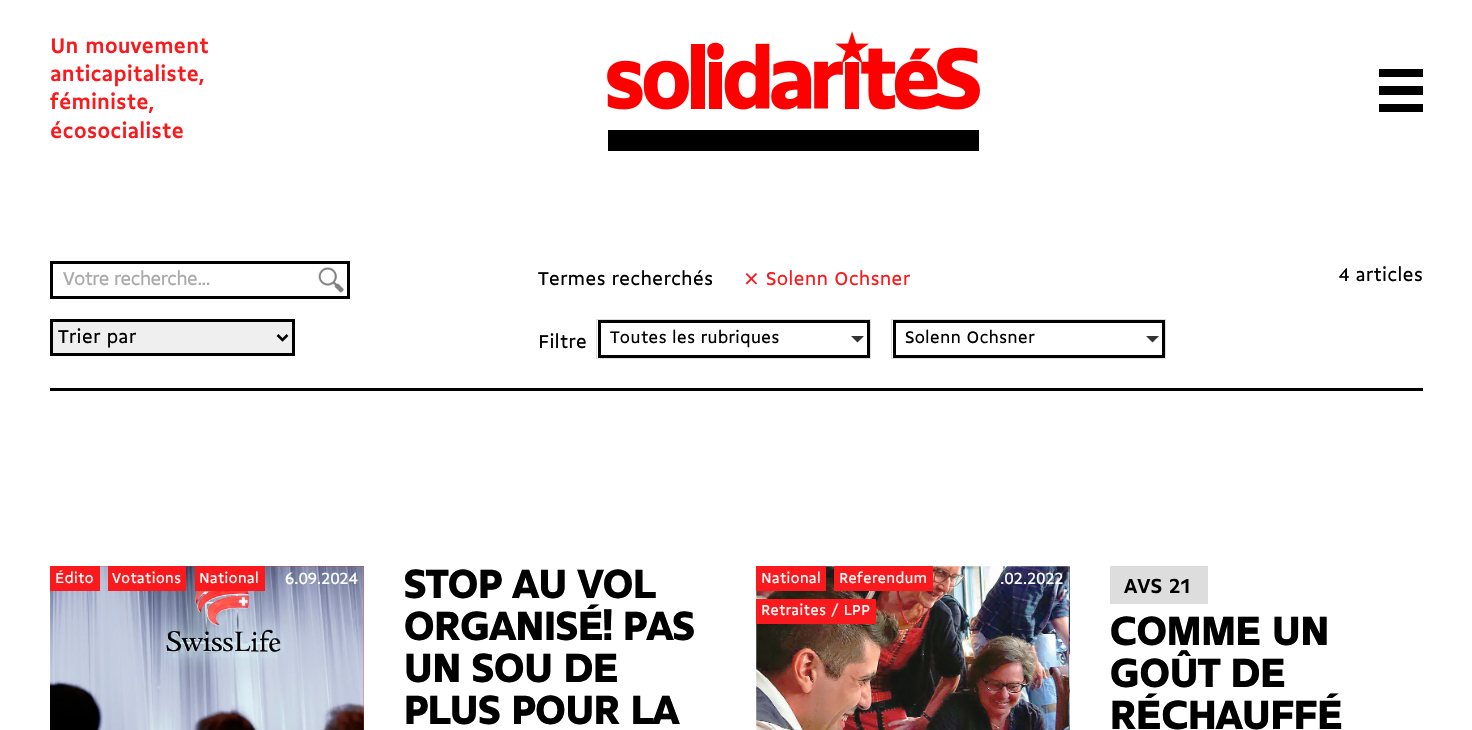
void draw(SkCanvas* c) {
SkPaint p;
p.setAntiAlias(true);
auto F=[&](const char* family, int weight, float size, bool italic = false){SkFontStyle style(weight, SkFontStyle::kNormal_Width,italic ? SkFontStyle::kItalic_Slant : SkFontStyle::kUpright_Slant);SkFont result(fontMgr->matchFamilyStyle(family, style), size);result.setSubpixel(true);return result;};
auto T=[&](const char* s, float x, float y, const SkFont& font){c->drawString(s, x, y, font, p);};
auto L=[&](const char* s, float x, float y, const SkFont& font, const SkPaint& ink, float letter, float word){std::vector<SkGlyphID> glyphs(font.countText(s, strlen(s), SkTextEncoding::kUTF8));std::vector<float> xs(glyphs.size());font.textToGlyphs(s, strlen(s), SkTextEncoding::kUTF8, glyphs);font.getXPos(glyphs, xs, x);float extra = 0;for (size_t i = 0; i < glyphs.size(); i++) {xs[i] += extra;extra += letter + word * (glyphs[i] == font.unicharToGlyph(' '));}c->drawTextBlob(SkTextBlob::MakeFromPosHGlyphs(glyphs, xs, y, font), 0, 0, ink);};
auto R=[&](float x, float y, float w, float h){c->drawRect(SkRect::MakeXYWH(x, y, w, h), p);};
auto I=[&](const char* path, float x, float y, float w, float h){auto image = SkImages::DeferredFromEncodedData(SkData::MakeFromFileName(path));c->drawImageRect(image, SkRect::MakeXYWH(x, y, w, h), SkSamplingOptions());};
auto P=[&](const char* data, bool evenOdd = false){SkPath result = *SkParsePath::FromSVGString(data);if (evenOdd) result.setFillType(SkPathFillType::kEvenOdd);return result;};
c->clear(0xffffffff);
auto f1 = F("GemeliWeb",700,22.5);
p.setColor(0xfffa1a1d);
T("Un mouvement",50,53,f1);
T("anticapitaliste,",50,81,f1);
T("féministe,",50,109,f1);
T("écosocialiste",50,138,f1);
I("1.png",607,31,373,120);
p.setColor(0xff000000);
c->drawPath(P("M1379 104h44v8h-44zm0-18v9h44v-9zm0-9h44v-8h-44z"),p);
R(50,388,1373,3);
p.setStroke(true);
p.setStrokeWidth(3);
c->drawRect(SkRect::MakeXYWH(51.5,262.5,297,35),p);
auto f2 = F("GemeliWeb",400,20);
p.setStroke(false);
p.setColor(0xffaaaaaa);
L("Votre recherche...",63,285,f2,p,-1,0);
I("2.png",318,267,26,26);
p.setColor(0xff000000);
T("Termes recherchés",538,285,f2);
auto f3 = F("DejaVu Sans",400,20);
p.setColor(0xfffa1a1d);
T("⨯",743,285,f3);
T("Solenn Ochsner",766,285,f2);
p.setColor(0xff000000);
T("4 articles",1339,281,f2);
p.setColor(0xffefefef);
c->drawRect(SkRect::MakeXYWH(51.5,320.5,242,34),p);
p.setStroke(true);
p.setColor(0xff000000);
c->drawRect(SkRect::MakeXYWH(51.5,320.5,242,34),p);
p.setStrokeWidth(2.5);
c->drawPath(P("M277.5 335l5 5l5-5"),p);
p.setStroke(false);
T("Trier par",58,343,f2);
T("Filtre",538,348,f2);
p.setStroke(true);
p.setStrokeWidth(1);
p.setColor(0xffdddddd);
c->drawRect(SkRect::MakeXYWH(596.5,319.5,274,39),p);
p.setStrokeWidth(3);
p.setColor(0xff000000);
c->drawRect(SkRect::MakeXYWH(599.5,321.5,269,35),p);
auto f4 = F("GemeliWeb",400,18);
p.setStroke(false);
T("Toutes les rubriques",610,343,f4);
p.setColor(0xff333333);
c->drawPath(P("M851 336h13l-6.5 6.5z"),p);
p.setStroke(true);
p.setStrokeWidth(1);
p.setColor(0xffdddddd);
c->drawRect(SkRect::MakeXYWH(891.5,319.5,274,39),p);
p.setStrokeWidth(3);
p.setColor(0xff000000);
c->drawRect(SkRect::MakeXYWH(894.5,321.5,269,35),p);
p.setStroke(false);
T("Solenn Ochsner",905,343,f4);
p.setColor(0xff333333);
c->drawPath(P("M1146 336h13l-6.5 6.5z"),p);
p.setColor(0xfffa1a1d);
R(100,566,264,164);
I("3.png",50,566,314,164);
R(50,566,50,25);
auto f5 = F("GemeliWeb",400,15.5);
p.setColor(0xffffffff);
T("Édito",55,583,f5);
p.setColor(0xfffa1a1d);
R(108,566,78,25);
p.setColor(0xffffffff);
T("Votations",112,583,f5);
p.setColor(0xfffa1a1d);
R(195,566,70,25);
p.setColor(0xffffffff);
T("National",199,583,f5);
auto f6 = F("GemeliWeb",400,17.5);
T("6.09.2024",285,584,f6);
auto f7 = F("GemeliWeb",900,44.25);
p.setColor(0xff000000);
L("STOP AU VOL",403,598,f7,p,-2.25,0);
L("ORGANISÉ! PAS",403,640,f7,p,-2.25,0);
L("UN SOU DE",403,682,f7,p,-2.25,0);
L("PLUS POUR LA",403,724,f7,p,-2.25,0);
I("4.png",756,566,314,164);
p.setColor(0xfffa1a1d);
R(756,566,70,25);
p.setColor(0xffffffff);
T("National",761,583,f5);
p.setColor(0xfffa1a1d);
R(834,566,99,25);
p.setColor(0xffffffff);
T("Referendum",839,583,f5);
p.setColor(0xfffa1a1d);
R(756,599,120,25);
p.setColor(0xffffffff);
T("Retraites / LPP",761,615,f5);
T(".02.2022",1000,584,f6);
p.setColor(0xffdddddd);
R(1110,566,98,38);
auto f8 = F("GemeliWeb",700,22);
p.setColor(0xff000000);
T("AVS 21",1124,593,f8);
L("COMME UN",1109,645,f7,p,-2.25,0);
L("GOÛT DE",1109,687,f7,p,-2.25,0);
L("RÉCHAUFFÉ",1109,729,f7,p,-2.25,0);
}
